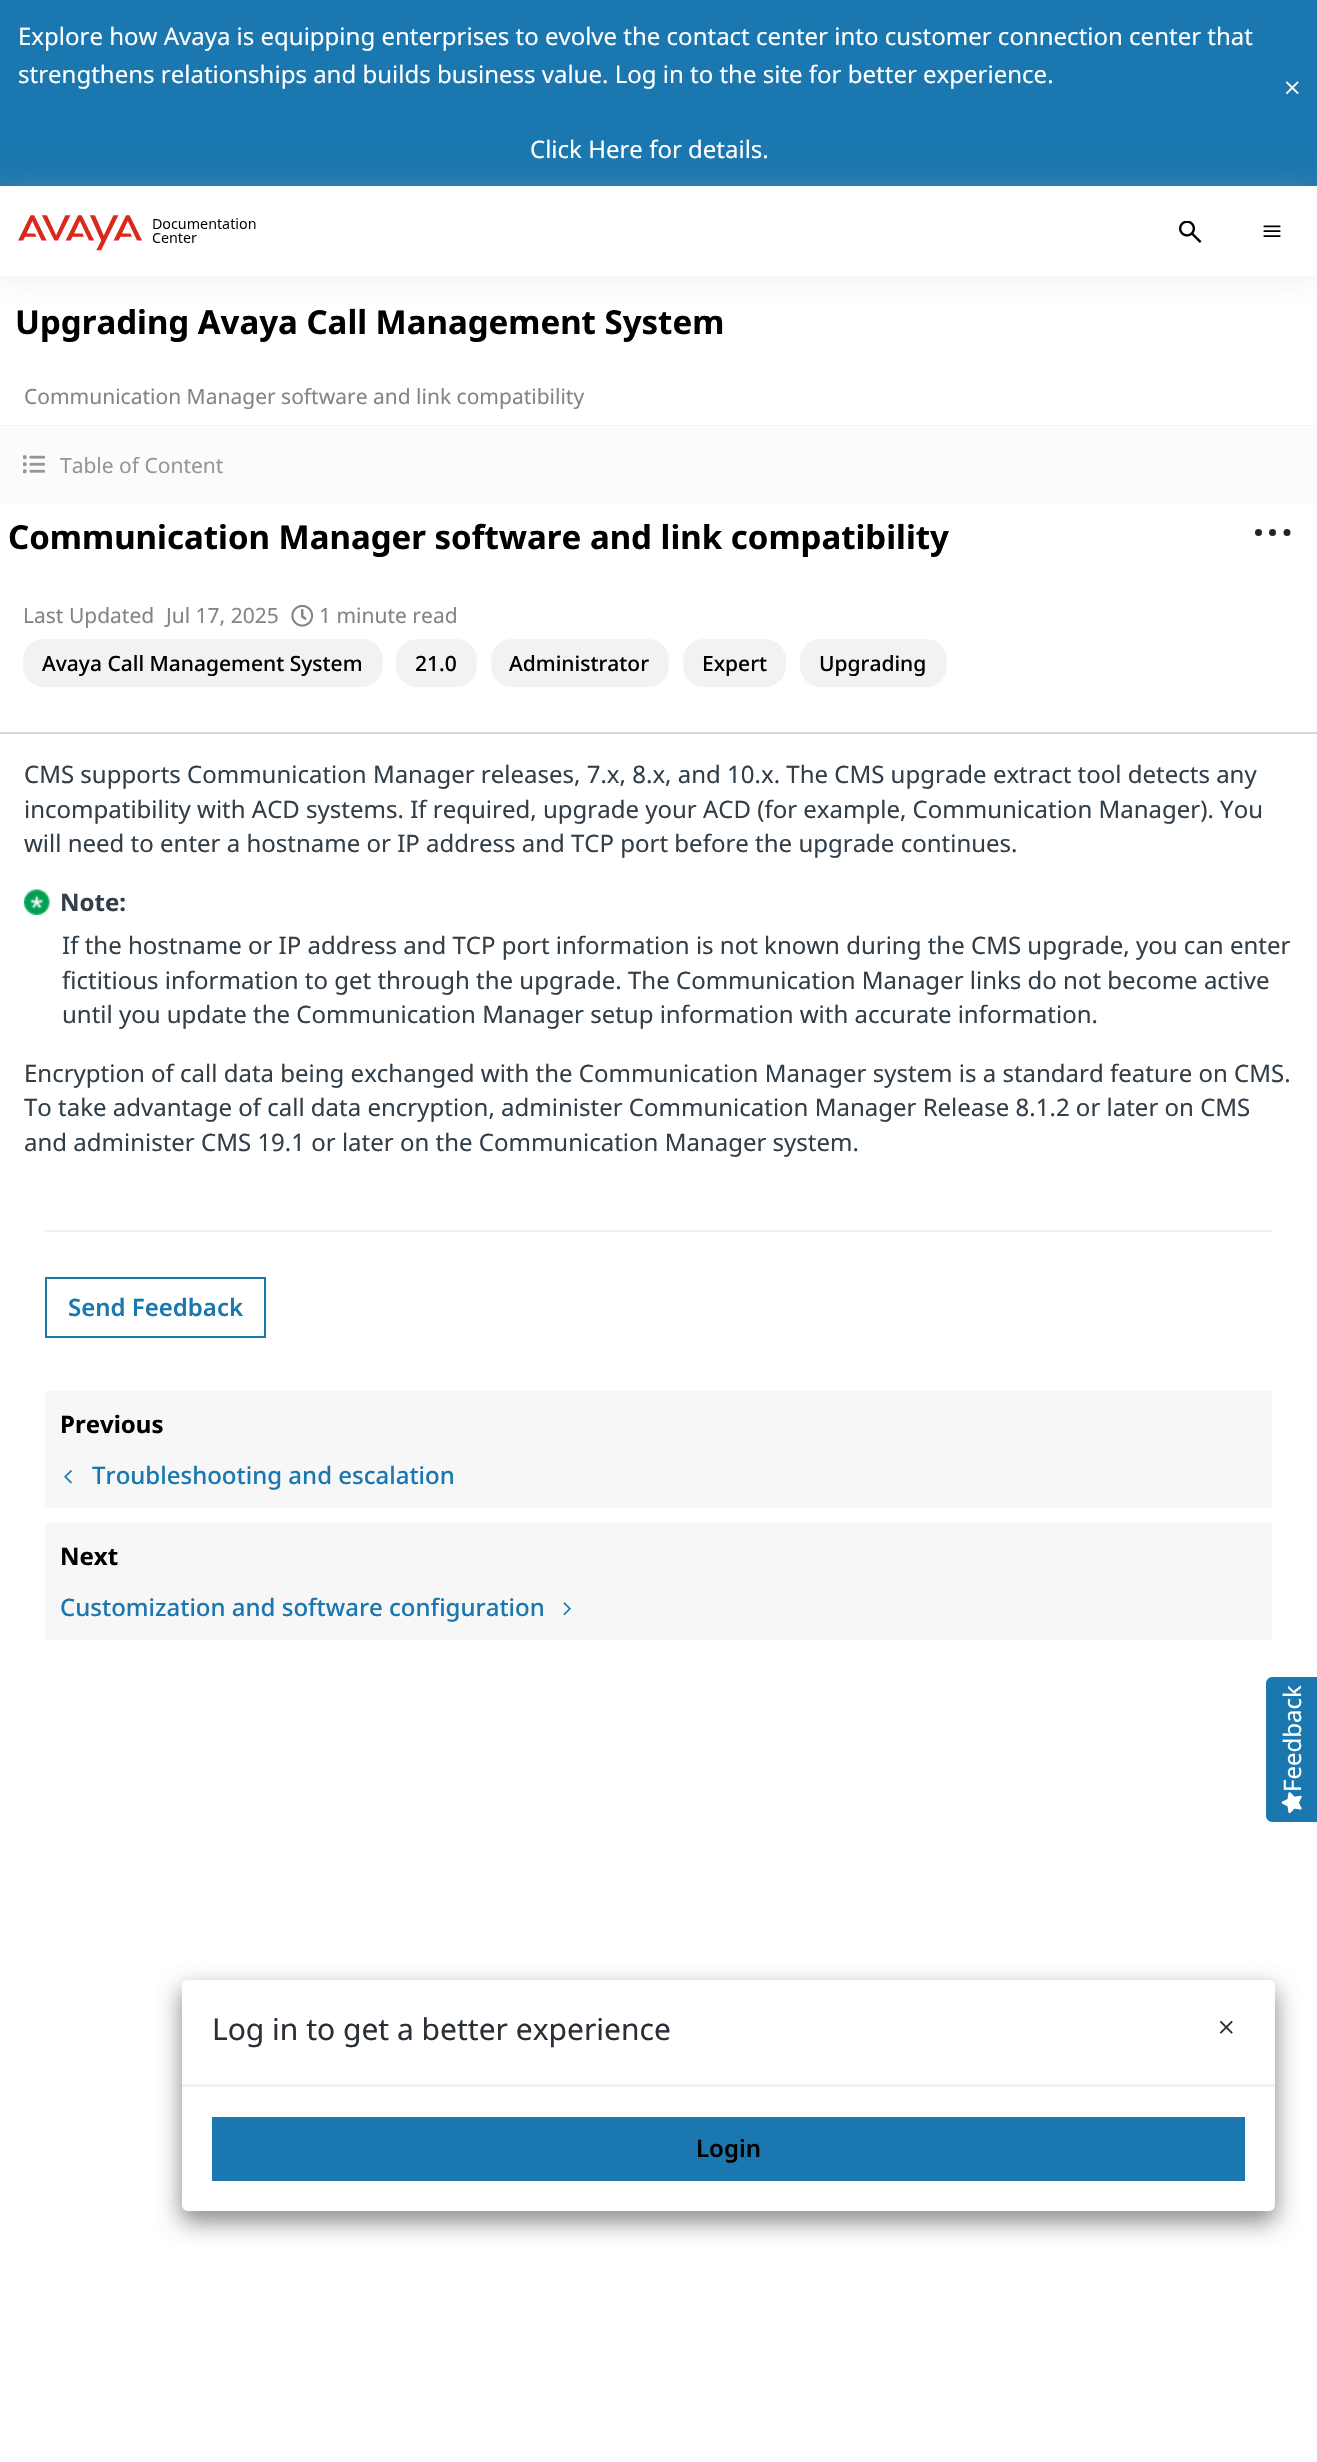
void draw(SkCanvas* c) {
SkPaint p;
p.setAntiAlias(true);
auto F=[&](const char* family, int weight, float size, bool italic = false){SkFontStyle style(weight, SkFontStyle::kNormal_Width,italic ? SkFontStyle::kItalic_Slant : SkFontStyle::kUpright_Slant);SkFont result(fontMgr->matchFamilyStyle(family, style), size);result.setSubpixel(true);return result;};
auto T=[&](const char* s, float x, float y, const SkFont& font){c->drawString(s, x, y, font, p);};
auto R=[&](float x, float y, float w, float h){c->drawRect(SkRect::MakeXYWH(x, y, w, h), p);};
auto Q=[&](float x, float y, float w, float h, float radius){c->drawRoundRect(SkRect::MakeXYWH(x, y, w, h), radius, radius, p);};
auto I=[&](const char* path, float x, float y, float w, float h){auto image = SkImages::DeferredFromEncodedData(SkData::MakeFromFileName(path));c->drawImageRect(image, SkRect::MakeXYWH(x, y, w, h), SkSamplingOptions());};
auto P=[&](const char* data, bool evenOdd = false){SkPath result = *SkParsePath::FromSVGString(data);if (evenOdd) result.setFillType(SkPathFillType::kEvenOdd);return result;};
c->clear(0xffffffff);
p.setColor(0xff1b77af);
R(0,0,1317,186);
auto f1 = F("Noto Sans",400,24);
p.setColor(0xffffffff);
T("Explore how Avaya is equipping enterprises to evolve the contact center into customer connection center that",18,45,f1);
T("strengthens relationships and builds business value. Log in to the site for better experience.",18,83,f1);
T("Click Here for details.",530,158,f1);
I("1.png",1285,81,14,14);
c->save();
c->clipPath(P("M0 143h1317v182h-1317zm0 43h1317v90h-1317z",true),true);
p.setColor(0x40b5b7b3);
p.setMaskFilter(SkMaskFilter::MakeBlur(kNormal_SkBlurStyle, 15));
c->drawRect(SkRect::MakeXYWH(0,189,1317,90),p);
p.setMaskFilter(nullptr);
c->restore();
I("2.png",18,215,238,36);
I("3.png",1179,221,23,22);
I("4.png",1263,225,18,12);
auto f2 = F("Noto Sans",700,33);
p.setColor(0xff000000);
T("Upgrading Avaya Call Management System",15,334,f2);
p.setColor(0xfff2f2f2);
R(0,425,1317,1);
auto f3 = F("Noto Sans",400,21);
p.setColor(0xff838486);
T("Communication Manager software and link compatibility",24,404,f3);
p.setColor(0xfffbfbfb);
R(0,426,1317,77);
I("5.png",23,455,22,19);
p.setColor(0xff93979a);
T("Table of Content",60,473,f3);
p.setColor(0xffd8d8d8);
R(0,732,1317,2);
p.setColor(0xff000000);
T("Communication Manager software and link compatibility",8,549,f2);
p.setColor(0xff212529);
c->drawCircle(1258.5,532.5,3.5,p);
c->drawCircle(1272.5,532.5,3.5,p);
c->drawCircle(1287,532.5,3.5,p);
p.setColor(0xff838486);
T("Last Updated",23,623,f3);
T("Jul 17, 2025",166,623,f3);
I("6.png",291,605,23,22);
T("1 minute read",319,623,f3);
p.setColor(0xfff2f2f2);
Q(23,639,360,48,21);
auto f4 = F("Noto Sans",500,21);
p.setColor(0xff000000);
T("Avaya Call Management System",42,671,f4);
p.setColor(0xfff2f2f2);
Q(396,639,81,48,21);
p.setColor(0xff000000);
T("21.0",415,671,f4);
p.setColor(0xfff2f2f2);
Q(491,639,178,48,21);
p.setColor(0xff000000);
T("Administrator",509,671,f4);
p.setColor(0xfff2f2f2);
Q(683,639,103,48,21);
p.setColor(0xff000000);
T("Expert",702,671,f4);
p.setColor(0xfff2f2f2);
Q(800,639,147,48,21);
p.setColor(0xff000000);
T("Upgrading",819,671,f4);
p.setColor(0xff323e48);
T("CMS supports Communication Manager releases, 7.x, 8.x, and 10.x. The CMS upgrade extract tool detects any",24,783,f1);
T("incompatibility with ACD systems. If required, upgrade your ACD (for example, Communication Manager). You",24,818,f1);
T("will need to enter a hostname or IP address and TCP port before the upgrade continues.",24,852,f1);
I("7.png",24,889,26,26);
auto f5 = F("Noto Sans",700,24);
T("Note:",60,911,f5);
T("If the hostname or IP address and TCP port information is not known during the CMS upgrade, you can enter",62,954,f1);
T("fictitious information to get through the upgrade. The Communication Manager links do not become active",62,989,f1);
T("until you update the Communication Manager setup information with accurate information.",62,1023,f1);
T("Encryption of call data being exchanged with the Communication Manager system is a standard feature on CMS.",24,1082,f1);
T("To take advantage of call data encryption, administer Communication Manager Release 8.1.2 or later on CMS",24,1116,f1);
T("and administer CMS 19.1 or later on the Communication Manager system.",24,1151,f1);
p.setColor(0xfff2f2f2);
R(45,1230,1227,2);
p.setStroke(true);
p.setStrokeWidth(2);
p.setColor(0xff1b77af);
c->drawRect(SkRect::MakeXYWH(46,1278,219,59),p);
auto f6 = F("Noto Sans",600,24);
p.setStroke(false);
T("Send Feedback",68,1316,f6);
p.setColor(0xfff7f7f7);
R(45,1391,1227,117);
p.setColor(0xff000000);
T("Previous",60,1433,f5);
I("8.png",64,1470,8,14);
auto f7 = F("Noto Sans",500,24);
p.setColor(0xff1b77af);
T("Troubleshooting and escalation",92,1484,f7);
p.setColor(0xfff7f7f7);
R(45,1523,1227,117);
p.setColor(0xff000000);
T("Next",60,1565,f5);
p.setColor(0xff1b77af);
T("Customization and software configuration",60,1616,f7);
I("9.png",563,1602,8,14);
p.setColor(0x40000000);
p.setMaskFilter(SkMaskFilter::MakeBlur(kNormal_SkBlurStyle, 11));
c->drawRoundRect(SkRect::MakeXYWH(182,1988,1093,231),6,6,p);
p.setMaskFilter(nullptr);
p.setColor(0x45000000);
p.setMaskFilter(SkMaskFilter::MakeBlur(kNormal_SkBlurStyle, 12));
c->drawRoundRect(SkRect::MakeXYWH(182,1992,1093,231),6,6,p);
p.setMaskFilter(nullptr);
p.setColor(0xffffffff);
Q(182,1980,1093,231,6);
c->drawPath(P("M188 1980h1081c3.5 0 6 2.5 6 6v99h-1093v-99c0-3.5 2.5-6 6-6z"),p);
p.setColor(0xfff1f1f1);
R(182,2084,1093,3);
auto f8 = F("Noto Sans",400,30);
p.setColor(0xff282f36);
T("Log in to get a better experience",212,2040,f8);
I("10.png",1219,2020,14,14);
p.setColor(0xff1b77af);
R(212,2117,1033,64);
p.setColor(0xff000000);
T("Login",696,2157,f6);
p.setColor(0xff1b77af);
c->drawPath(P("M1266 1816v-133c0-3 3-6 6-6h45v145h-45c-3 0-6-3-6-6z"),p);
p.setColor(0xffffffff);
c->save();
c->rotate(-90,1301,1792);
T("Feedback",1301,1792,f1);
c->restore();
I("11.png",1281,1792,21,22);
}
